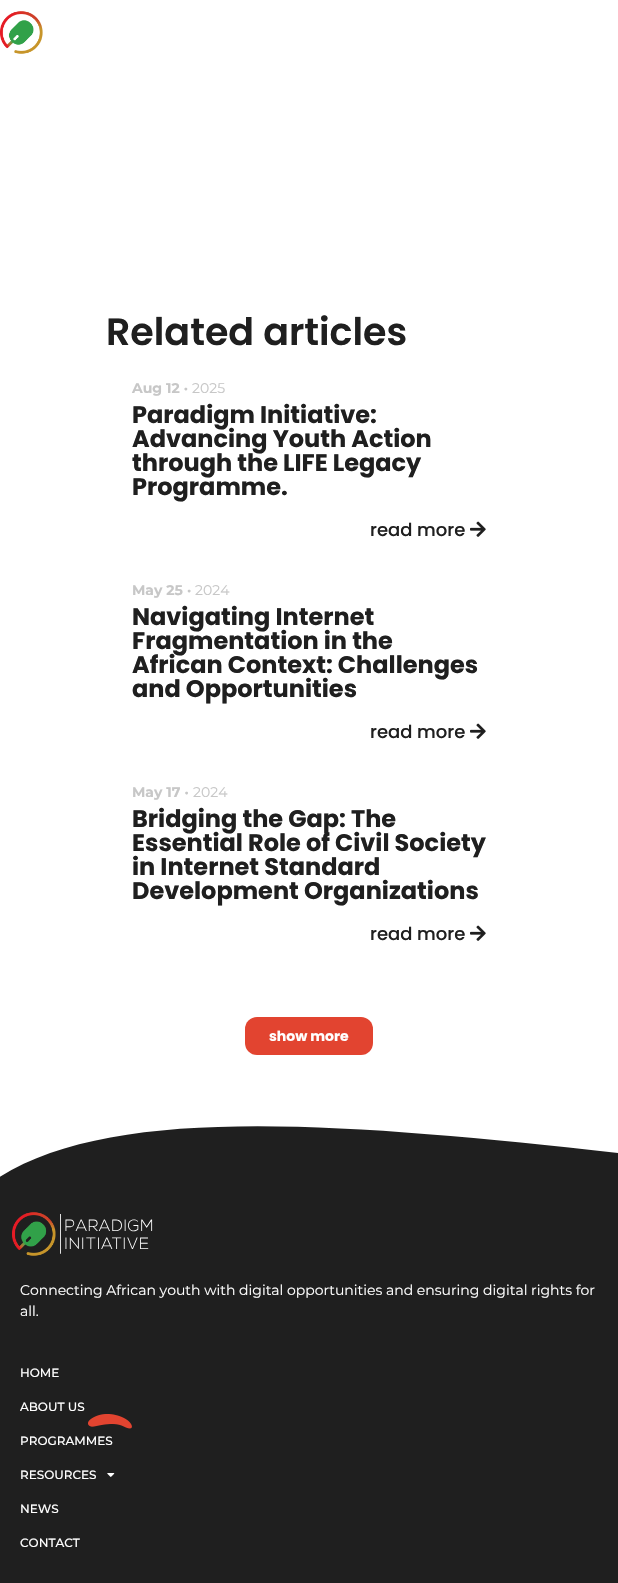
void draw(SkCanvas* c) {
SkPaint p;
p.setAntiAlias(true);
auto F=[&](const char* family, int weight, float size, bool italic = false){SkFontStyle style(weight, SkFontStyle::kNormal_Width,italic ? SkFontStyle::kItalic_Slant : SkFontStyle::kUpright_Slant);SkFont result(fontMgr->matchFamilyStyle(family, style), size);result.setSubpixel(true);return result;};
auto T=[&](const char* s, float x, float y, const SkFont& font){c->drawString(s, x, y, font, p);};
auto R=[&](float x, float y, float w, float h){c->drawRect(SkRect::MakeXYWH(x, y, w, h), p);};
auto Q=[&](float x, float y, float w, float h, float radius){c->drawRoundRect(SkRect::MakeXYWH(x, y, w, h), radius, radius, p);};
auto I=[&](const char* path, float x, float y, float w, float h){auto image = SkImages::DeferredFromEncodedData(SkData::MakeFromFileName(path));c->drawImageRect(image, SkRect::MakeXYWH(x, y, w, h), SkSamplingOptions());};
auto P=[&](const char* data, bool evenOdd = false){SkPath result = *SkParsePath::FromSVGString(data);if (evenOdd) result.setFillType(SkPathFillType::kEvenOdd);return result;};
c->clear(0xffffffff);
I("1.png",0,11,43,43);
auto f1 = F("Poppins",600,38);
p.setColor(0xff1f1f1f);
T("Related articles",106,345,f1);
auto f2 = F("Montserrat",700,14);
p.setColor(0xffc7c7c7);
T("Aug 12 ·",132,393,f2);
auto f3 = F("Montserrat",400,14);
T("2025",192,393,f3);
auto f4 = F("Poppins",700,24);
p.setColor(0xff1f1f1f);
T("Paradigm Initiative:",132,423,f4);
T("Advancing Youth Action",132,447,f4);
T("through the LIFE Legacy",132,471,f4);
T("Programme.",132,495,f4);
auto f5 = F("Poppins",500,18);
T("read more",370,536,f5);
I("2.png",470,521,16,16);
p.setColor(0xffc7c7c7);
T("May 25 ·",132,595,f2);
T("2024",195,595,f3);
p.setColor(0xff1f1f1f);
T("Navigating Internet",132,625,f4);
T("Fragmentation in the",132,649,f4);
T("African Context: Challenges",132,673,f4);
T("and Opportunities",132,697,f4);
T("read more",370,738,f5);
I("2.png",470,723,16,16);
p.setColor(0xffc7c7c7);
T("May 17 ·",132,797,f2);
T("2024",193,797,f3);
p.setColor(0xff1f1f1f);
T("Bridging the Gap: The",132,827,f4);
T("Essential Role of Civil Society",132,851,f4);
T("in Internet Standard",132,875,f4);
T("Development Organizations",132,899,f4);
T("read more",370,940,f5);
I("2.png",470,925,16,16);
p.setColor(0xffe24430);
Q(245,1017,128,38,12);
auto f6 = F("Poppins",700,14);
p.setColor(0xffffffff);
T("show more",269,1041,f6);
p.setColor(0xff1f1f1f);
R(0,1126,618,457);
p.setColor(0xffffffff);
c->drawPath(P("M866 1111h-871v69c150-100 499-36 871-1z",true),p);
I("3.png",12,1212,141,44);
T("Connecting African youth with digital opportunities and ensuring digital rights for",20,1295,f3);
T("all.",20,1316,f3);
auto f7 = F("Montserrat",500,12);
T("HOME",20,1377,f7);
T("ABOUT US",20,1411,f7);
I("4.png",88,1414,44,15);
T("PROGRAMMES",20,1445,f7);
T("RESOURCES",20,1479,f7);
I("5.png",107,1473,8,4);
T("NEWS",20,1513,f7);
T("CONTACT",20,1547,f7);
}
